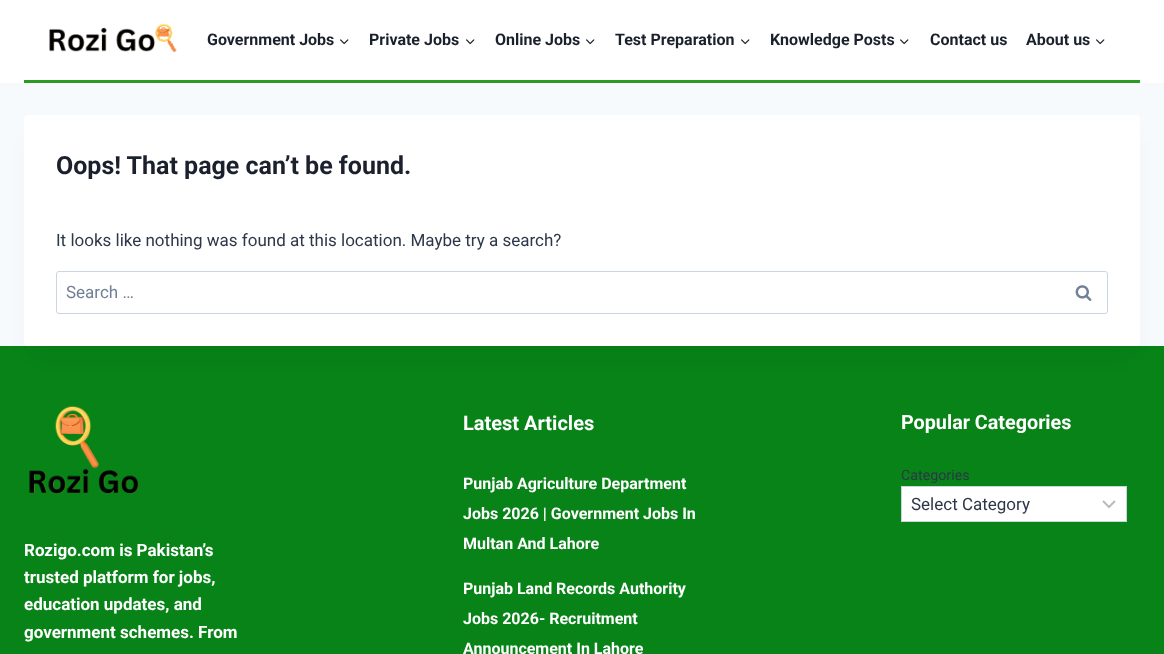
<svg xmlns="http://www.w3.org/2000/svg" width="1164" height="654">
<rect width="100%" height="100%" fill="#f7fafc"/>
<rect width="1164" height="83" fill="#fff"/>
<rect x="24" y="80" width="1116" height="3" fill="#2d9a21"/>
<image x="49" y="23" width="128" height="30" href="media/1.png"/>
<text x="207" y="45" style="font-family:Roboto;font-size:16px;font-weight:bold;fill:#1a202c">Government Jobs</text>
<image x="340" y="39" width="9" height="6" href="media/2.png"/>
<text x="369" y="45" style="font-family:Roboto;font-size:16px;font-weight:bold;fill:#1a202c">Private Jobs</text>
<image x="466" y="39" width="9" height="6" href="media/2.png"/>
<text x="495" y="45" style="font-family:Roboto;font-size:16px;font-weight:bold;fill:#1a202c">Online Jobs</text>
<image x="586" y="39" width="9" height="6" href="media/2.png"/>
<text x="615" y="45" style="font-family:Roboto;font-size:16px;font-weight:bold;fill:#1a202c">Test Preparation</text>
<image x="741" y="39" width="9" height="6" href="media/2.png"/>
<text x="770" y="45" style="font-family:Roboto;font-size:16px;font-weight:bold;fill:#1a202c">Knowledge Posts</text>
<image x="900" y="39" width="9" height="6" href="media/2.png"/>
<text x="930" y="45" style="font-family:Roboto;font-size:16px;font-weight:bold;fill:#1a202c">Contact us</text>
<text x="1026" y="45" style="font-family:Roboto;font-size:16px;font-weight:bold;fill:#1a202c">About us</text>
<image x="1096" y="39" width="9" height="6" href="media/2.png"/>
<rect y="346" width="1164" height="308" fill="#088318"/>
<rect x="34" y="140" width="1096" height="211" fill="#0000000d" filter="blur(12.5px)"/>
<rect x="24" y="115" width="1116" height="231" rx="4" fill="#fff"/>
<text x="56" y="174" style="font-family:Roboto;font-size:25px;font-weight:bold;fill:#1a202c">Oops! That page can’t be found.</text>
<text x="56" y="246" style="font-family:Roboto;font-size:17px;fill:#2d3748">It looks like nothing was found at this location. Maybe try a search?</text>
<rect x="56.5" y="271.5" width="1051" height="42" rx="2.5" fill="none" stroke="#cbd5e0"/>
<text x="66" y="298" style="font-family:Roboto;font-size:17px;fill:#718096">Search …</text>
<image x="1075" y="285" width="17" height="16" href="media/3.png"/>
<image x="29" y="406" width="110" height="88" href="media/4.png"/>
<text x="24" y="556" style="font-family:Roboto;font-size:17px;font-weight:bold;fill:#fff">Rozigo.com is Pakistan’s</text>
<text x="24" y="583" style="font-family:Roboto;font-size:17px;font-weight:bold;fill:#fff">trusted platform for jobs,</text>
<text x="24" y="610" style="font-family:Roboto;font-size:17px;font-weight:bold;fill:#fff">education updates, and</text>
<text x="24" y="638" style="font-family:Roboto;font-size:17px;font-weight:bold;fill:#fff">government schemes. From</text>
<text x="463" y="430" style="font-family:Roboto;font-size:20px;font-weight:bold;fill:#fff">Latest Articles</text>
<text x="463" y="489" style="font-family:Roboto;font-size:16px;font-weight:bold;fill:#fff">Punjab Agriculture Department</text>
<text x="463" y="519" style="font-family:Roboto;font-size:16px;font-weight:bold;fill:#fff">Jobs 2026 | Government Jobs In</text>
<text x="463" y="549" style="font-family:Roboto;font-size:16px;font-weight:bold;fill:#fff">Multan And Lahore</text>
<text x="463" y="594" style="font-family:Roboto;font-size:16px;font-weight:bold;fill:#fff">Punjab Land Records Authority</text>
<text x="463" y="624" style="font-family:Roboto;font-size:16px;font-weight:bold;fill:#fff">Jobs 2026- Recruitment</text>
<text x="463" y="654" style="font-family:Roboto;font-size:16px;font-weight:bold;fill:#fff">Announcement In Lahore</text>
<text x="901" y="429" style="font-family:Roboto;font-size:19.75px;font-weight:bold;fill:#fff">Popular Categories</text>
<text x="901" y="480" style="font-family:Roboto;font-size:14.25px;fill:#2d3748">Categories</text>
<rect x="902" y="487" width="224" height="34" fill="#fff"/>
<path d="M1103 501l6 6l6-6" fill="none" stroke="#bbb" stroke-width="2"/>
<rect x="901.5" y="486.5" width="225" height="35" fill="none" stroke="#cbd5e0"/>
<text x="911" y="510" style="font-family:Roboto;font-size:17px;fill:#2d3748">Select Category</text>
</svg>
